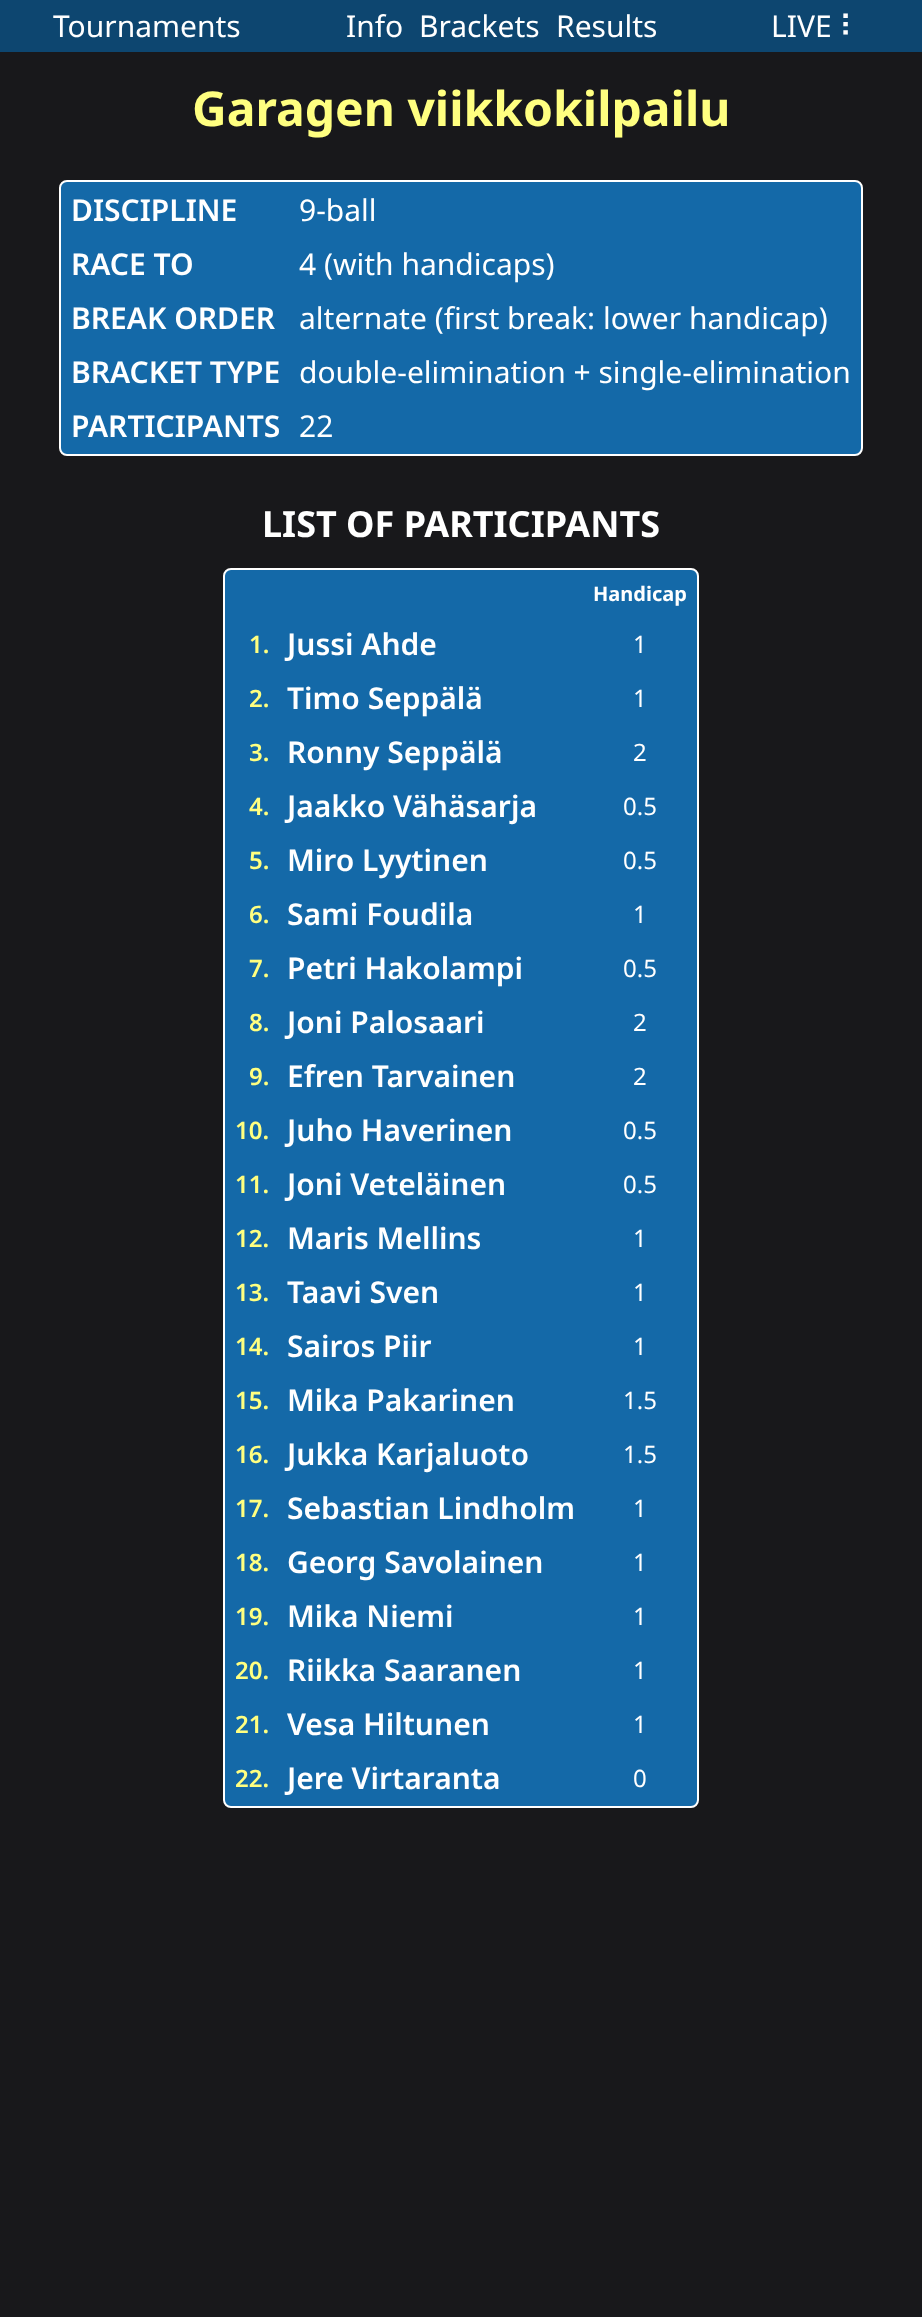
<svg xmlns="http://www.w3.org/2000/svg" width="922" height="2317">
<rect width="100%" height="100%" fill="#18181b"/>
<rect width="922" height="52" fill="#0d4670"/>
<text x="53" y="37" style="font-family:Noto Sans;font-size:30px;fill:#fff">Tournaments</text>
<text x="346" y="37" style="font-family:Noto Sans;font-size:30px;fill:#fff">Info</text>
<text x="419" y="37" style="font-family:Noto Sans;font-size:30px;fill:#fff">Brackets</text>
<text x="556" y="37" style="font-family:Noto Sans;font-size:30px;fill:#fff">Results</text>
<text x="771" y="37" style="font-family:Noto Sans;font-size:30px;fill:#fff">LIVE</text>
<text x="839" y="37" style="font-family:DejaVu Sans;font-size:30px;fill:#fff">⠇</text>
<text x="192" y="126" style="font-family:Noto Sans;font-size:48px;font-weight:bold;fill:#ffff80">Garagen viikkokilpailu</text>
<rect x="60" y="181" width="802" height="274" rx="7" fill="#1469a8" stroke="#fff" stroke-width="2"/>
<text x="71" y="221" style="font-family:Noto Sans;font-size:30px;font-weight:600;fill:#fff">DISCIPLINE</text>
<text x="299" y="221" style="font-family:Noto Sans;font-size:30px;fill:#fff">9-ball</text>
<text x="71" y="275" style="font-family:Noto Sans;font-size:30px;font-weight:600;fill:#fff">RACE TO</text>
<text x="299" y="275" style="font-family:Noto Sans;font-size:30px;fill:#fff">4 (with handicaps)</text>
<text x="71" y="329" style="font-family:Noto Sans;font-size:30px;font-weight:600;fill:#fff">BREAK ORDER</text>
<text x="299" y="329" style="font-family:Noto Sans;font-size:30px;fill:#fff">alternate (first break: lower handicap)</text>
<text x="71" y="383" style="font-family:Noto Sans;font-size:30px;font-weight:600;fill:#fff">BRACKET TYPE</text>
<text x="299" y="383" style="font-family:Noto Sans;font-size:30px;fill:#fff">double-elimination + single-elimination</text>
<text x="71" y="437" style="font-family:Noto Sans;font-size:30px;font-weight:600;fill:#fff">PARTICIPANTS</text>
<text x="299" y="437" style="font-family:Noto Sans;font-size:30px;fill:#fff">22</text>
<text x="262" y="537" style="font-family:Noto Sans;font-size:36px;font-weight:bold;fill:#fff">LIST OF PARTICIPANTS</text>
<rect x="224" y="569" width="474" height="1238" rx="7" fill="#1469a8" stroke="#fff" stroke-width="2"/>
<text x="593" y="601" style="font-family:Noto Sans;font-size:20px;font-weight:bold;fill:#fff">Handicap</text>
<text x="249" y="653" style="font-family:Noto Sans;font-size:24px;font-weight:600;fill:#ffff80">1.</text>
<text x="287" y="655" style="font-family:Noto Sans;font-size:30px;font-weight:600;fill:#fff">Jussi Ahde</text>
<text x="633" y="653" style="font-family:Noto Sans;font-size:24px;fill:#fff">1</text>
<text x="249" y="707" style="font-family:Noto Sans;font-size:24px;font-weight:600;fill:#ffff80">2.</text>
<text x="287" y="709" style="font-family:Noto Sans;font-size:30px;font-weight:600;fill:#fff">Timo Seppälä</text>
<text x="633" y="707" style="font-family:Noto Sans;font-size:24px;fill:#fff">1</text>
<text x="249" y="761" style="font-family:Noto Sans;font-size:24px;font-weight:600;fill:#ffff80">3.</text>
<text x="287" y="763" style="font-family:Noto Sans;font-size:30px;font-weight:600;fill:#fff">Ronny Seppälä</text>
<text x="633" y="761" style="font-family:Noto Sans;font-size:24px;fill:#fff">2</text>
<text x="249" y="815" style="font-family:Noto Sans;font-size:24px;font-weight:600;fill:#ffff80">4.</text>
<text x="287" y="817" style="font-family:Noto Sans;font-size:30px;font-weight:600;fill:#fff">Jaakko Vähäsarja</text>
<text x="623" y="815" style="font-family:Noto Sans;font-size:24px;fill:#fff">0.5</text>
<text x="249" y="869" style="font-family:Noto Sans;font-size:24px;font-weight:600;fill:#ffff80">5.</text>
<text x="287" y="871" style="font-family:Noto Sans;font-size:30px;font-weight:600;fill:#fff">Miro Lyytinen</text>
<text x="623" y="869" style="font-family:Noto Sans;font-size:24px;fill:#fff">0.5</text>
<text x="249" y="923" style="font-family:Noto Sans;font-size:24px;font-weight:600;fill:#ffff80">6.</text>
<text x="287" y="925" style="font-family:Noto Sans;font-size:30px;font-weight:600;fill:#fff">Sami Foudila</text>
<text x="633" y="923" style="font-family:Noto Sans;font-size:24px;fill:#fff">1</text>
<text x="249" y="977" style="font-family:Noto Sans;font-size:24px;font-weight:600;fill:#ffff80">7.</text>
<text x="287" y="979" style="font-family:Noto Sans;font-size:30px;font-weight:600;fill:#fff">Petri Hakolampi</text>
<text x="623" y="977" style="font-family:Noto Sans;font-size:24px;fill:#fff">0.5</text>
<text x="249" y="1031" style="font-family:Noto Sans;font-size:24px;font-weight:600;fill:#ffff80">8.</text>
<text x="287" y="1033" style="font-family:Noto Sans;font-size:30px;font-weight:600;fill:#fff">Joni Palosaari</text>
<text x="633" y="1031" style="font-family:Noto Sans;font-size:24px;fill:#fff">2</text>
<text x="249" y="1085" style="font-family:Noto Sans;font-size:24px;font-weight:600;fill:#ffff80">9.</text>
<text x="287" y="1087" style="font-family:Noto Sans;font-size:30px;font-weight:600;fill:#fff">Efren Tarvainen</text>
<text x="633" y="1085" style="font-family:Noto Sans;font-size:24px;fill:#fff">2</text>
<text x="235" y="1139" style="font-family:Noto Sans;font-size:24px;font-weight:600;fill:#ffff80">10.</text>
<text x="287" y="1141" style="font-family:Noto Sans;font-size:30px;font-weight:600;fill:#fff">Juho Haverinen</text>
<text x="623" y="1139" style="font-family:Noto Sans;font-size:24px;fill:#fff">0.5</text>
<text x="235" y="1193" style="font-family:Noto Sans;font-size:24px;font-weight:600;fill:#ffff80">11.</text>
<text x="287" y="1195" style="font-family:Noto Sans;font-size:30px;font-weight:600;fill:#fff">Joni Veteläinen</text>
<text x="623" y="1193" style="font-family:Noto Sans;font-size:24px;fill:#fff">0.5</text>
<text x="235" y="1247" style="font-family:Noto Sans;font-size:24px;font-weight:600;fill:#ffff80">12.</text>
<text x="287" y="1249" style="font-family:Noto Sans;font-size:30px;font-weight:600;fill:#fff">Maris Mellins</text>
<text x="633" y="1247" style="font-family:Noto Sans;font-size:24px;fill:#fff">1</text>
<text x="235" y="1301" style="font-family:Noto Sans;font-size:24px;font-weight:600;fill:#ffff80">13.</text>
<text x="287" y="1303" style="font-family:Noto Sans;font-size:30px;font-weight:600;fill:#fff">Taavi Sven</text>
<text x="633" y="1301" style="font-family:Noto Sans;font-size:24px;fill:#fff">1</text>
<text x="235" y="1355" style="font-family:Noto Sans;font-size:24px;font-weight:600;fill:#ffff80">14.</text>
<text x="287" y="1357" style="font-family:Noto Sans;font-size:30px;font-weight:600;fill:#fff">Sairos Piir</text>
<text x="633" y="1355" style="font-family:Noto Sans;font-size:24px;fill:#fff">1</text>
<text x="235" y="1409" style="font-family:Noto Sans;font-size:24px;font-weight:600;fill:#ffff80">15.</text>
<text x="287" y="1411" style="font-family:Noto Sans;font-size:30px;font-weight:600;fill:#fff">Mika Pakarinen</text>
<text x="623" y="1409" style="font-family:Noto Sans;font-size:24px;fill:#fff">1.5</text>
<text x="235" y="1463" style="font-family:Noto Sans;font-size:24px;font-weight:600;fill:#ffff80">16.</text>
<text x="287" y="1465" style="font-family:Noto Sans;font-size:30px;font-weight:600;fill:#fff">Jukka Karjaluoto</text>
<text x="623" y="1463" style="font-family:Noto Sans;font-size:24px;fill:#fff">1.5</text>
<text x="235" y="1517" style="font-family:Noto Sans;font-size:24px;font-weight:600;fill:#ffff80">17.</text>
<text x="287" y="1519" style="font-family:Noto Sans;font-size:30px;font-weight:600;fill:#fff">Sebastian Lindholm</text>
<text x="633" y="1517" style="font-family:Noto Sans;font-size:24px;fill:#fff">1</text>
<text x="235" y="1571" style="font-family:Noto Sans;font-size:24px;font-weight:600;fill:#ffff80">18.</text>
<text x="287" y="1573" style="font-family:Noto Sans;font-size:30px;font-weight:600;fill:#fff">Georg Savolainen</text>
<text x="633" y="1571" style="font-family:Noto Sans;font-size:24px;fill:#fff">1</text>
<text x="235" y="1625" style="font-family:Noto Sans;font-size:24px;font-weight:600;fill:#ffff80">19.</text>
<text x="287" y="1627" style="font-family:Noto Sans;font-size:30px;font-weight:600;fill:#fff">Mika Niemi</text>
<text x="633" y="1625" style="font-family:Noto Sans;font-size:24px;fill:#fff">1</text>
<text x="235" y="1679" style="font-family:Noto Sans;font-size:24px;font-weight:600;fill:#ffff80">20.</text>
<text x="287" y="1681" style="font-family:Noto Sans;font-size:30px;font-weight:600;fill:#fff">Riikka Saaranen</text>
<text x="633" y="1679" style="font-family:Noto Sans;font-size:24px;fill:#fff">1</text>
<text x="235" y="1733" style="font-family:Noto Sans;font-size:24px;font-weight:600;fill:#ffff80">21.</text>
<text x="287" y="1735" style="font-family:Noto Sans;font-size:30px;font-weight:600;fill:#fff">Vesa Hiltunen</text>
<text x="633" y="1733" style="font-family:Noto Sans;font-size:24px;fill:#fff">1</text>
<text x="235" y="1787" style="font-family:Noto Sans;font-size:24px;font-weight:600;fill:#ffff80">22.</text>
<text x="287" y="1789" style="font-family:Noto Sans;font-size:30px;font-weight:600;fill:#fff">Jere Virtaranta</text>
<text x="633" y="1787" style="font-family:Noto Sans;font-size:24px;fill:#fff">0</text>
</svg>
